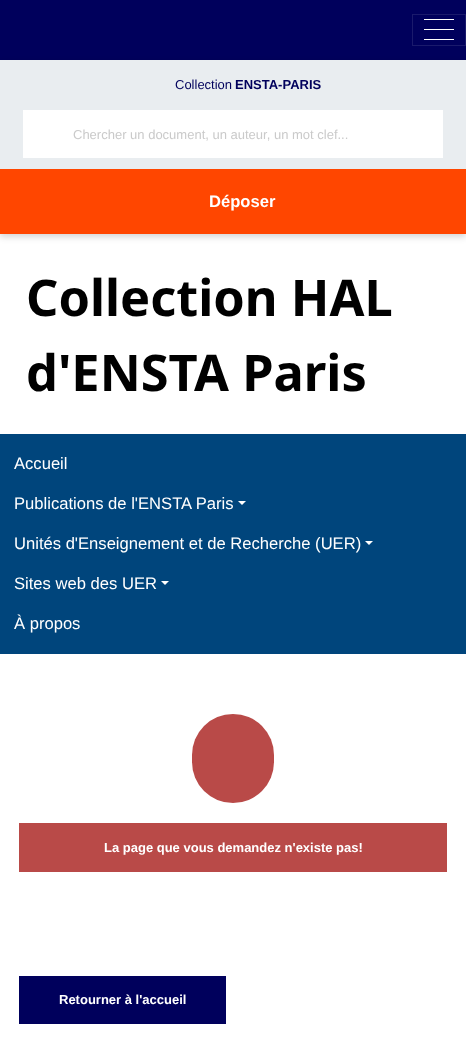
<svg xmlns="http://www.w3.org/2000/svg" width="466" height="1039">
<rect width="100%" height="100%" fill="#fff"/>
<rect width="466" height="60" fill="#00005c"/>
<rect x="412.5" y="14.5" width="53" height="31" fill="none" stroke="#1a1a6c"/>
<rect x="424" y="19" width="30" height="1" fill="#fff"/>
<rect x="424" y="29" width="30" height="1" fill="#fff"/>
<rect x="424" y="39" width="30" height="1" fill="#fff"/>
<rect y="63" width="466" height="174" fill="#00000029" filter="blur(3px)"/>
<rect y="60" width="466" height="109" fill="#e9edf0"/>
<text x="175" y="89" style="font-family:Liberation Sans;font-size:13px;fill:#00005c">Collection</text>
<text x="235" y="89" style="font-family:Liberation Sans;font-size:13px;font-weight:bold;fill:#00005c">ENSTA-PARIS</text>
<rect x="23" y="110" width="420" height="48" fill="#fff"/>
<text x="73" y="139" style="font-family:Liberation Sans;font-size:13px;fill:#cacaca">Chercher un document, un auteur, un mot clef...</text>
<rect y="169" width="466" height="65" fill="#ff4600"/>
<text x="209" y="207" style="font-family:Liberation Sans;font-size:16.6px;font-weight:bold;fill:#fff">Déposer</text>
<text x="26" y="316" style="font-family:Noto Sans;font-size:50.5px;font-weight:bold;fill:#000">Collection HAL</text>
<text x="26" y="391" style="font-family:Noto Sans;font-size:50.5px;font-weight:bold;fill:#000">d'ENSTA Paris</text>
<rect y="434" width="466" height="220" fill="#00457c"/>
<text x="14" y="469" style="font-family:Liberation Sans;font-size:16.6px;fill:#fff">Accueil</text>
<text x="14" y="509" style="font-family:Liberation Sans;font-size:16.6px;fill:#fff">Publications de l'ENSTA Paris</text>
<path d="M238 501h8l-4 4z" fill="#fff"/>
<text x="14" y="549" style="font-family:Liberation Sans;font-size:16.6px;fill:#fff">Unités d'Enseignement et de Recherche (UER)</text>
<path d="M365 541h8l-4 4z" fill="#fff"/>
<text x="14" y="589" style="font-family:Liberation Sans;font-size:16.6px;fill:#fff">Sites web des UER</text>
<path d="M161 581h8l-4 4z" fill="#fff"/>
<text x="14" y="629" style="font-family:Liberation Sans;font-size:16.6px;fill:#fff">À propos</text>
<rect x="192" y="714" width="82" height="89" rx="41" fill="#b94a48"/>
<rect x="19" y="823" width="428" height="49" fill="#b94a48"/>
<text x="104" y="852" style="font-family:Liberation Sans;font-size:13px;font-weight:bold;fill:#fff">La page que vous demandez n'existe pas!</text>
<rect x="19" y="976" width="207" height="48" fill="#00005c"/>
<text x="59" y="1004" style="font-family:Liberation Sans;font-size:13px;font-weight:bold;fill:#fff">Retourner à l'accueil</text>
</svg>
